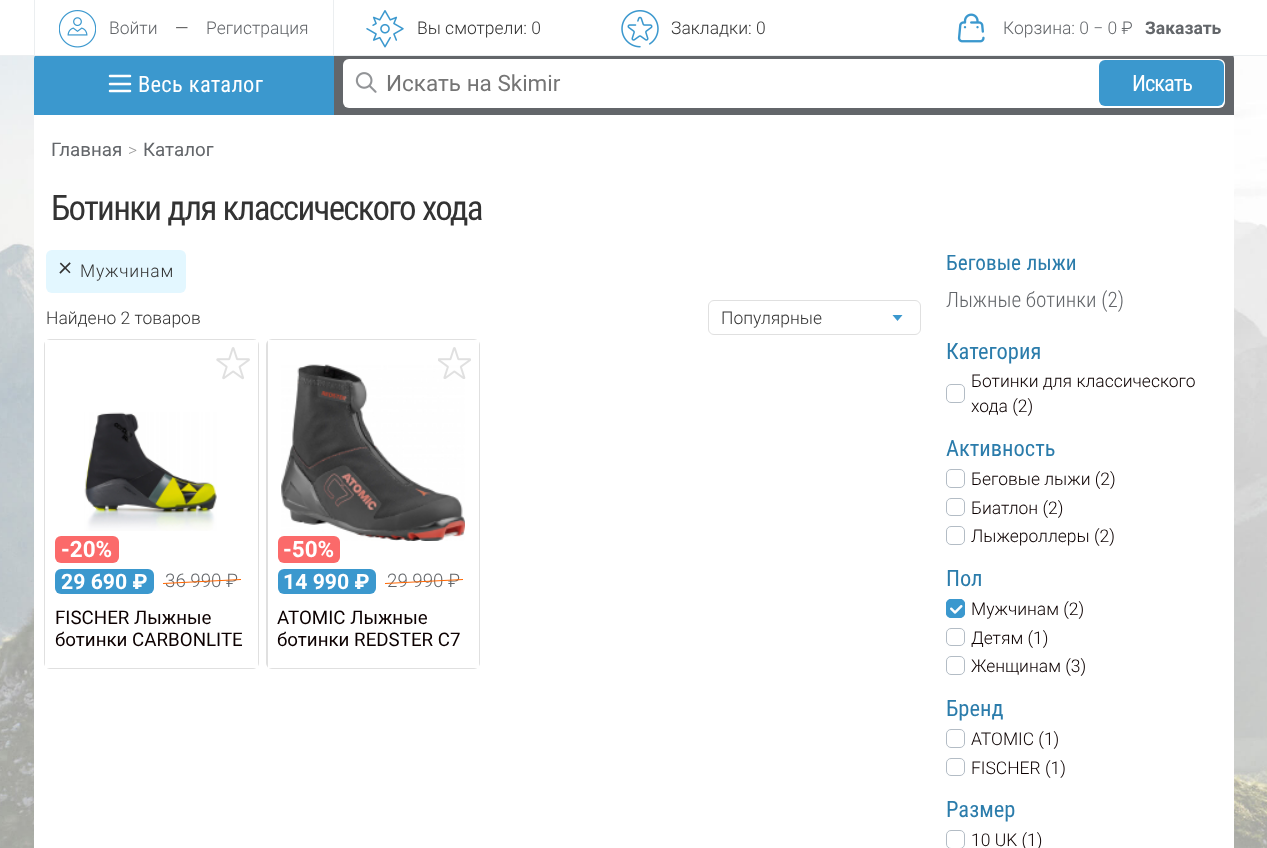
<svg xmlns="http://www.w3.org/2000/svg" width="1267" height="848">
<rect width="100%" height="100%" fill="#fff"/>
<image x="0" y="56" width="1267" height="792" href="media/1.png"/>
<rect x="34" y="56" width="1200" height="792" fill="#fff"/>
<path d="M40 53h294v62h-300v-56c0-3.5 2.5-6 6-6z" fill="#3b98ce"/>
<path d="M334 53h894c3.5 0 6 2.5 6 6v56h-900z" fill="#63666a"/>
<rect x="35" y="53" width="1198" height="2" fill="#fff"/>
<rect y="55" width="1267" height="1" fill="#ebeef0"/>
<rect x="333" width="1" height="56" fill="#ebeef0"/>
<rect x="34" width="1" height="56" fill="#ebeef0"/>
<image x="59" y="10" width="37" height="38" href="media/2.png"/>
<text x="109" y="34" style="font-family:Roboto;font-size:17.5px;font-weight:300;fill:#63666a">Войти</text>
<text x="175" y="34" style="font-family:Roboto;font-size:17.5px;font-weight:300;fill:#333">—</text>
<text x="206" y="34" style="font-family:Roboto;font-size:17.5px;font-weight:300;fill:#63666a">Регистрация</text>
<image x="366" y="10" width="38" height="38" href="media/3.png"/>
<text x="417" y="34" style="font-family:Roboto;font-size:17.5px;font-weight:300;fill:#333">Вы смотрели: 0</text>
<image x="621" y="10" width="38" height="38" href="media/4.png"/>
<text x="671" y="34" style="font-family:Roboto;font-size:17.5px;font-weight:300;fill:#333">Закладки: 0</text>
<image x="957" y="13" width="28" height="30" href="media/5.png"/>
<text x="1003" y="34" style="font-family:Roboto;font-size:17.5px;font-weight:300;fill:#63666a">Корзина: 0 − 0 ₽</text>
<text x="1145" y="34" style="font-family:Roboto;font-size:17.5px;font-weight:bold;fill:#63666a">Заказать</text>
<path d="M110 76h20m-20 8h20m-20 7h20" fill="none" stroke="#fff" stroke-width="2.5" stroke-linecap="round" stroke-linejoin="round"/>
<text x="138" y="92" style="font-family:Roboto Condensed;font-size:22.5px;letter-spacing:0.25px;fill:#fff">Весь каталог</text>
<rect x="343" y="59" width="882" height="49" rx="6" fill="#fff"/>
<image x="355" y="72" width="22" height="21" href="media/6.png"/>
<text x="386" y="91" style="font-family:Roboto;font-size:22.5px;fill:#757575">Искать на Skimir</text>
<rect x="1099" y="60" width="125" height="46" rx="6" fill="#3b98ce"/>
<text x="1132" y="91" style="font-family:Roboto Condensed;font-size:22.5px;letter-spacing:-1px;fill:#fff">Искать</text>
<text x="51" y="156" style="font-family:Roboto;font-size:18.75px;fill:#63666a">Главная</text>
<text x="128" y="156" style="font-family:Roboto;font-size:17.5px;font-weight:300;fill:#999">&gt;</text>
<text x="143" y="156" style="font-family:Roboto;font-size:18.75px;fill:#63666a">Каталог</text>
<text x="51" y="220" style="font-family:Roboto Condensed;font-size:35px;letter-spacing:-1.75px;fill:#333">Ботинки для классического хода</text>
<rect x="46" y="250" width="140" height="43" rx="6" fill="#e3f7ff"/>
<text x="53" y="269" transform="rotate(45 53 269)" style="font-family:Roboto;font-size:28px;font-weight:300;letter-spacing:0.75px;fill:#333">+</text>
<text x="80" y="277" style="font-family:Roboto;font-size:17.5px;font-weight:300;letter-spacing:0.75px;fill:#333">Мужчинам</text>
<text x="46" y="324" style="font-family:Roboto;font-size:17.5px;font-weight:300;fill:#333">Найдено 2 товаров</text>
<rect x="708.5" y="300.5" width="212" height="34" rx="5.5" fill="none" stroke="#e0e0e0"/>
<text x="721" y="324" style="font-family:Roboto;font-size:17.5px;font-weight:300;fill:#333">Популярные</text>
<path d="M892.5 315l5 6l5-6z" fill="#3b98ce"/>
<rect x="44" y="339" width="215" height="330" rx="6" fill="#e0e0e0"/>
<rect x="45" y="340" width="213" height="328" fill="#fff"/>
<image x="216" y="347" width="34" height="33" href="media/7.png"/>
<image x="84" y="412" width="133" height="119" href="media/8.png"/>
<rect x="55" y="536" width="64" height="27" rx="6" fill="#fb6a6a"/>
<text x="61" y="557" style="font-family:Roboto;font-size:22.5px;font-weight:bold;fill:#fff">-20%</text>
<rect x="55" y="569" width="99" height="25" rx="6" fill="#3b98ce"/>
<text x="61" y="589" style="font-family:Roboto;font-size:21.25px;font-weight:bold;fill:#fff">29 690 ₽</text>
<text x="165" y="587" style="font-family:Roboto;font-size:18.75px;font-weight:300;fill:#63666a">36 990 ₽</text>
<path d="M163 583l78-4v1l-78 4z" fill="#f60"/>
<text x="55" y="624" style="font-family:Roboto;font-size:18.75px;fill:#0c0000">FISCHER Лыжные</text>
<text x="55" y="646" style="font-family:Roboto;font-size:18.75px;fill:#0c0000">ботинки CARBONLITE</text>
<rect x="266" y="339" width="214" height="330" rx="6" fill="#e0e0e0"/>
<rect x="268" y="340" width="211" height="328" fill="#fff"/>
<image x="281" y="364" width="184" height="177" href="media/10.png"/>
<image x="438" y="347" width="33" height="32" href="media/9.png"/>
<rect x="278" y="536" width="62" height="27" rx="6" fill="#fb6a6a"/>
<text x="283" y="557" style="font-family:Roboto;font-size:22.5px;font-weight:bold;fill:#fff">-50%</text>
<rect x="278" y="569" width="98" height="25" rx="6" fill="#3b98ce"/>
<text x="283" y="589" style="font-family:Roboto;font-size:21.25px;font-weight:bold;fill:#fff">14 990 ₽</text>
<text x="387" y="587" style="font-family:Roboto;font-size:18.75px;font-weight:300;fill:#63666a">29 990 ₽</text>
<path d="M385 583l78-4v1l-78 4z" fill="#f60"/>
<text x="277" y="624" style="font-family:Roboto;font-size:18.75px;fill:#0c0000">ATOMIC Лыжные</text>
<text x="277" y="646" style="font-family:Roboto;font-size:18.75px;fill:#0c0000">ботинки REDSTER C7</text>
<text x="946" y="270" style="font-family:Roboto Condensed;font-size:21.25px;fill:#2b7cab">Беговые лыжи</text>
<text x="946" y="307" style="font-family:Roboto Condensed;font-size:21.25px;font-weight:300;fill:#63666a">Лыжные ботинки (2)</text>
<text x="946" y="359" style="font-family:Roboto Condensed;font-size:22.5px;fill:#2b7cab">Категория</text>
<rect x="946.5" y="384.5" width="18" height="18" rx="4.5" fill="none" stroke="#b3bcc5"/>
<text x="971" y="387" style="font-family:Roboto;font-size:17.5px;font-weight:300;fill:#0c0000">Ботинки для классического</text>
<text x="971" y="412" style="font-family:Roboto;font-size:17.5px;font-weight:300;fill:#0c0000">хода (2)</text>
<text x="946" y="456" style="font-family:Roboto Condensed;font-size:22.5px;fill:#2b7cab">Активность</text>
<rect x="946.5" y="469.5" width="18" height="18" rx="4.5" fill="none" stroke="#b3bcc5"/>
<text x="971" y="485" style="font-family:Roboto;font-size:17.5px;font-weight:300;fill:#0c0000">Беговые лыжи (2)</text>
<rect x="946.5" y="498.5" width="18" height="17" rx="4.5" fill="none" stroke="#b3bcc5"/>
<text x="971" y="514" style="font-family:Roboto;font-size:17.5px;font-weight:300;fill:#0c0000">Биатлон (2)</text>
<rect x="946.5" y="526.5" width="18" height="18" rx="4.5" fill="none" stroke="#b3bcc5"/>
<text x="971" y="542" style="font-family:Roboto;font-size:17.5px;font-weight:300;fill:#0c0000">Лыжероллеры (2)</text>
<text x="946" y="586" style="font-family:Roboto Condensed;font-size:22.5px;fill:#2b7cab">Пол</text>
<rect x="946" y="599" width="19" height="19" rx="5" fill="#3b98ce"/>
<image x="950" y="605" width="13" height="9" href="media/11.png"/>
<rect x="946.5" y="599.5" width="18" height="18" rx="4.5" fill="none" stroke="#3b98ce"/>
<text x="971" y="615" style="font-family:Roboto;font-size:17.5px;font-weight:300;fill:#0c0000">Мужчинам (2)</text>
<rect x="946.5" y="628.5" width="18" height="17" rx="4.5" fill="none" stroke="#b3bcc5"/>
<text x="971" y="644" style="font-family:Roboto;font-size:17.5px;font-weight:300;fill:#0c0000">Детям (1)</text>
<rect x="946.5" y="656.5" width="18" height="18" rx="4.5" fill="none" stroke="#b3bcc5"/>
<text x="971" y="672" style="font-family:Roboto;font-size:17.5px;font-weight:300;fill:#0c0000">Женщинам (3)</text>
<text x="946" y="716" style="font-family:Roboto Condensed;font-size:22.5px;fill:#2b7cab">Бренд</text>
<rect x="946.5" y="729.5" width="18" height="18" rx="4.5" fill="none" stroke="#b3bcc5"/>
<text x="971" y="745" style="font-family:Roboto;font-size:17.5px;font-weight:300;fill:#0c0000">ATOMIC (1)</text>
<rect x="946.5" y="758.5" width="18" height="17" rx="4.5" fill="none" stroke="#b3bcc5"/>
<text x="971" y="774" style="font-family:Roboto;font-size:17.5px;font-weight:300;fill:#0c0000">FISCHER (1)</text>
<text x="946" y="817" style="font-family:Roboto Condensed;font-size:22.5px;fill:#2b7cab">Размер</text>
<rect x="946.5" y="830.5" width="18" height="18" rx="4.5" fill="none" stroke="#b3bcc5"/>
<text x="971" y="846" style="font-family:Roboto;font-size:17.5px;font-weight:300;fill:#0c0000">10 UK (1)</text>
</svg>
